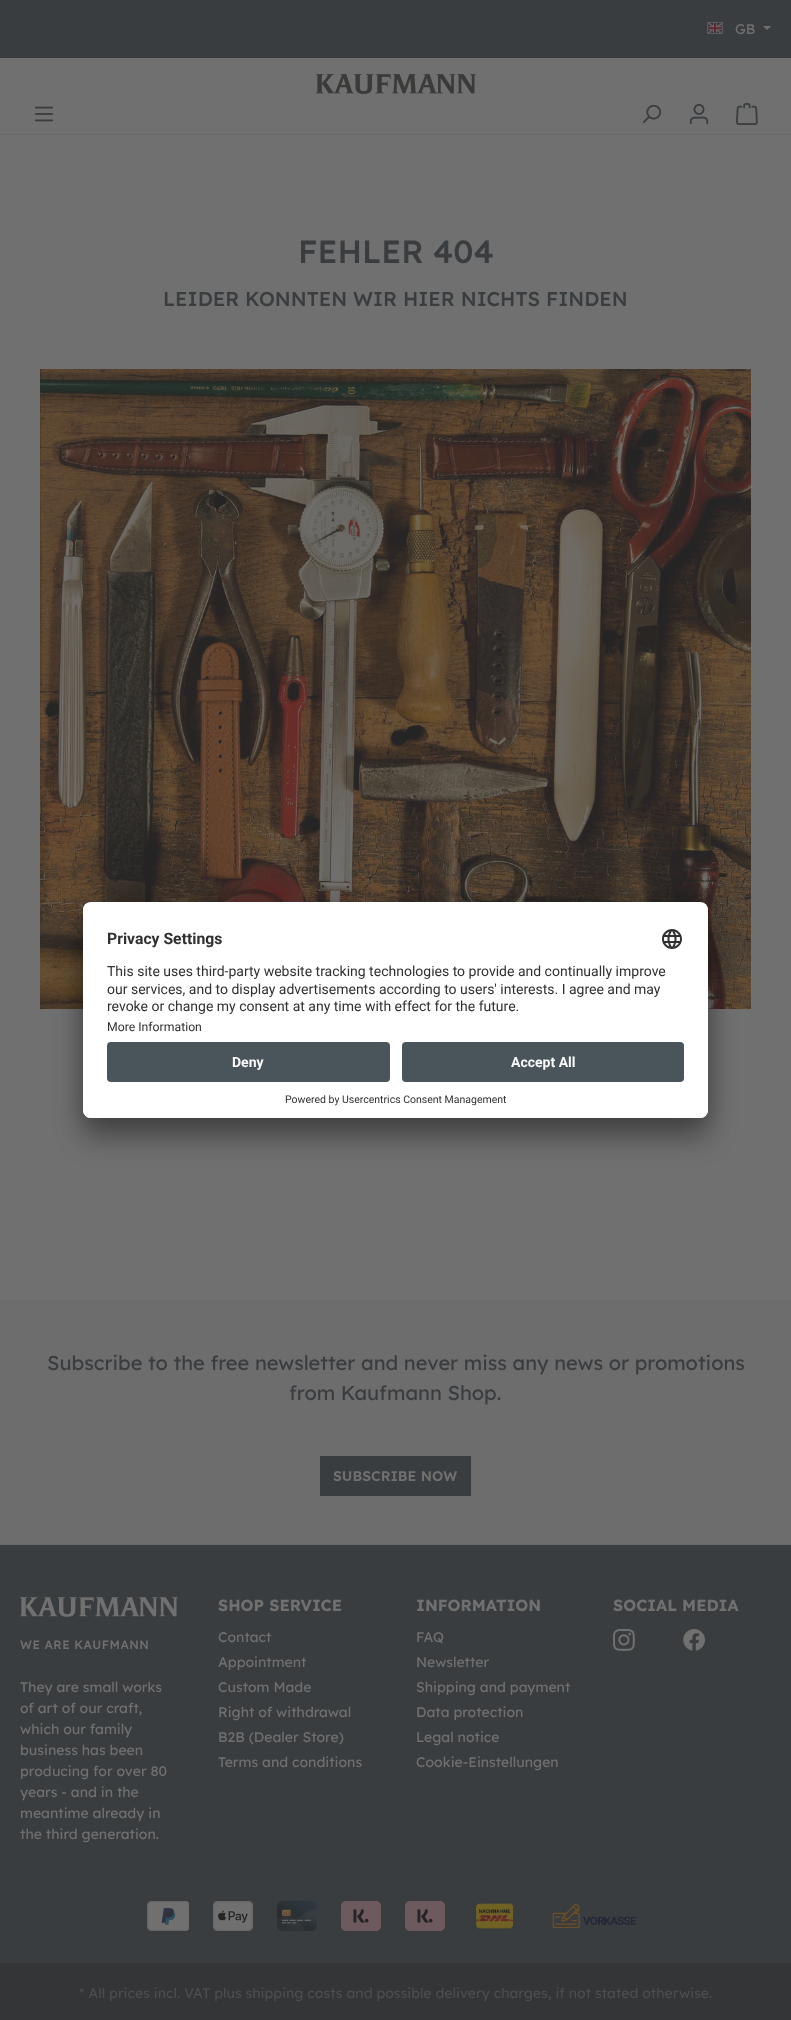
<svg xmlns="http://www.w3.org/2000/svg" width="791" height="2020">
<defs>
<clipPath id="clip1"><rect x="83" y="902" width="625" height="216" rx="8"/></clipPath>
<clipPath id="clip2"><path d="M91 902h609c4.5 0 8 3.5 8 8v124h-625v-124c0-4.5 3.5-8 8-8z"/></clipPath>
</defs>
<rect width="100%" height="100%" fill="#707070"/>
<rect width="791" height="58" fill="#3a3d3f"/>
<image x="708" y="23" width="14" height="10" href="media/1.png"/>
<rect x="707.5" y="22.5" width="15" height="11" fill="none" stroke="#585a5c"/>
<text x="735" y="34" style="font-family:Lexend;font-size:14px;fill:#707070">GB</text>
<path d="M763 26h8l-4 4z" fill="#707070"/>
<rect y="134" width="791" height="1" fill="#696969"/>
<image x="316" y="74" width="160" height="20" href="media/2.png"/>
<image x="34" y="106" width="20" height="16" href="media/3.png"/>
<image x="642" y="104" width="20" height="20" href="media/4.png"/>
<image x="689" y="103" width="20" height="22" href="media/5.png"/>
<image x="736" y="103" width="22" height="22" href="media/6.png"/>
<text x="298" y="263" style="font-family:Lexend;font-size:32px;font-weight:500;fill:#3a3d3f">FEHLER 404</text>
<text x="163" y="306" style="font-family:Lexend;font-size:20px;font-weight:500;fill:#3a3d3f">LEIDER KONNTEN WIR HIER NICHTS FINDEN</text>
<image x="40" y="369" width="711" height="640" href="media/7.png"/>
<rect x="83" y="922" width="625" height="216" rx="8" fill="#0000004d" filter="blur(14px)"/>
<rect x="83" y="907" width="625" height="216" rx="8" fill="#00000038" filter="blur(13px)"/>
<rect x="83" y="902" width="625" height="216" rx="8" fill="#fff"/>
<g clip-path="url(#clip1)">
<g clip-path="url(#clip2)">
<rect x="83" y="903" width="625" height="131" fill="#fff"/>
</g>
</g>
<text x="107" y="944" style="font-family:Roboto;font-size:15.75px;font-weight:bold;fill:#303030">Privacy Settings</text>
<image x="662" y="929" width="20" height="20" href="media/8.png"/>
<text x="107" y="976" style="font-family:Roboto;font-size:14px;fill:#303030">This site uses third-party website tracking technologies to provide and continually improve</text>
<text x="107" y="994" style="font-family:Roboto;font-size:14px;fill:#303030">our services, and to display advertisements according to users' interests. I agree and may</text>
<text x="107" y="1011" style="font-family:Roboto;font-size:14px;fill:#303030">revoke or change my consent at any time with effect for the future.</text>
<text x="107" y="1031" style="font-family:Roboto;font-size:12.25px;fill:#303030">More Information</text>
<path d="M83 1034h625v76c0 4.5-3.5 8-8 8h-609c-4.5 0-8-3.5-8-8z" fill="#fff"/>
<rect x="107" y="1042" width="283" height="40" rx="4" fill="#4a545b"/>
<text x="232" y="1067" style="font-family:Roboto;font-size:14px;font-weight:bold;fill:#fafafa">Deny</text>
<rect x="402" y="1042" width="282" height="40" rx="4" fill="#4a545b"/>
<text x="511" y="1067" style="font-family:Roboto;font-size:14px;font-weight:bold;fill:#fafafa">Accept All</text>
<text x="285" y="1103" style="font-family:Roboto;font-size:10.5px;fill:#303030">Powered by Usercentrics Consent Management</text>
<rect y="1300" width="791" height="244" fill="#6d6d6e"/>
<text x="47" y="1370" style="font-family:Lexend;font-size:20px;fill:#3a3d3f">Subscribe to the free newsletter and never miss any news or promotions</text>
<text x="289" y="1400" style="font-family:Lexend;font-size:20px;fill:#3a3d3f">from Kaufmann Shop.</text>
<rect x="320" y="1456" width="151" height="40" fill="#3a3d3f"/>
<text x="333" y="1481" style="font-family:Lexend;font-size:14px;font-weight:600;fill:#707070">SUBSCRIBE NOW</text>
<rect y="1545" width="791" height="418" fill="#3a3d3f"/>
<rect y="1544" width="791" height="1" fill="#696969"/>
<text x="218" y="1611" style="font-family:Lexend;font-size:16px;font-weight:bold;fill:#707070">SHOP SERVICE</text>
<text x="218" y="1642" style="font-family:Lexend;font-size:14px;fill:#707070">Contact</text>
<text x="218" y="1667" style="font-family:Lexend;font-size:14px;fill:#707070">Appointment</text>
<text x="218" y="1692" style="font-family:Lexend;font-size:14px;fill:#707070">Custom Made</text>
<text x="218" y="1717" style="font-family:Lexend;font-size:14px;fill:#707070">Right of withdrawal</text>
<text x="218" y="1742" style="font-family:Lexend;font-size:14px;fill:#707070">B2B (Dealer Store)</text>
<text x="218" y="1767" style="font-family:Lexend;font-size:14px;fill:#707070">Terms and conditions</text>
<text x="416" y="1611" style="font-family:Lexend;font-size:16px;font-weight:bold;fill:#707070">INFORMATION</text>
<text x="416" y="1642" style="font-family:Lexend;font-size:14px;fill:#707070">FAQ</text>
<text x="416" y="1667" style="font-family:Lexend;font-size:14px;fill:#707070">Newsletter</text>
<text x="416" y="1692" style="font-family:Lexend;font-size:14px;fill:#707070">Shipping and payment</text>
<text x="416" y="1717" style="font-family:Lexend;font-size:14px;fill:#707070">Data protection</text>
<text x="416" y="1742" style="font-family:Lexend;font-size:14px;fill:#707070">Legal notice</text>
<text x="416" y="1767" style="font-family:Lexend;font-size:14px;fill:#707070">Cookie-Einstellungen</text>
<text x="613" y="1611" style="font-family:Lexend;font-size:16px;font-weight:bold;fill:#707070">SOCIAL MEDIA</text>
<image x="613" y="1629" width="22" height="22" href="media/9.png"/>
<image x="683" y="1629" width="22" height="22" href="media/10.png"/>
<image x="20" y="1597" width="158" height="20" href="media/11.png"/>
<text x="20" y="1649" style="font-family:Lexend;font-size:12px;font-weight:500;letter-spacing:0.5px;fill:#707070">WE ARE KAUFMANN</text>
<text x="20" y="1692" style="font-family:Lexend;font-size:14px;fill:#707070">They are small works</text>
<text x="20" y="1713" style="font-family:Lexend;font-size:14px;fill:#707070">of art of our craft,</text>
<text x="20" y="1734" style="font-family:Lexend;font-size:14px;fill:#707070">which our family</text>
<text x="20" y="1755" style="font-family:Lexend;font-size:14px;fill:#707070">business has been</text>
<text x="20" y="1776" style="font-family:Lexend;font-size:14px;fill:#707070">producing for over 80</text>
<text x="20" y="1797" style="font-family:Lexend;font-size:14px;fill:#707070">years - and in the</text>
<text x="20" y="1818" style="font-family:Lexend;font-size:14px;fill:#707070">meantime already in</text>
<text x="20" y="1839" style="font-family:Lexend;font-size:14px;fill:#707070">the third generation.</text>
<image x="147" y="1901" width="42" height="30" href="media/12.png"/>
<image x="213" y="1901" width="40" height="30" href="media/13.png"/>
<image x="277" y="1901" width="40" height="30" href="media/14.png"/>
<image x="341" y="1901" width="40" height="30" href="media/15.png"/>
<image x="405" y="1901" width="40" height="30" href="media/15.png"/>
<image x="475" y="1903" width="39" height="26" href="media/16.png"/>
<image x="552" y="1903" width="85" height="25" href="media/17.png"/>
<rect y="1963" width="791" height="57" fill="#333537"/>
<text x="79" y="1998" style="font-family:Lexend;font-size:14px;fill:#4b4d4e">* All prices incl. VAT plus shipping costs and possible delivery charges, if not stated otherwise.</text>
</svg>
